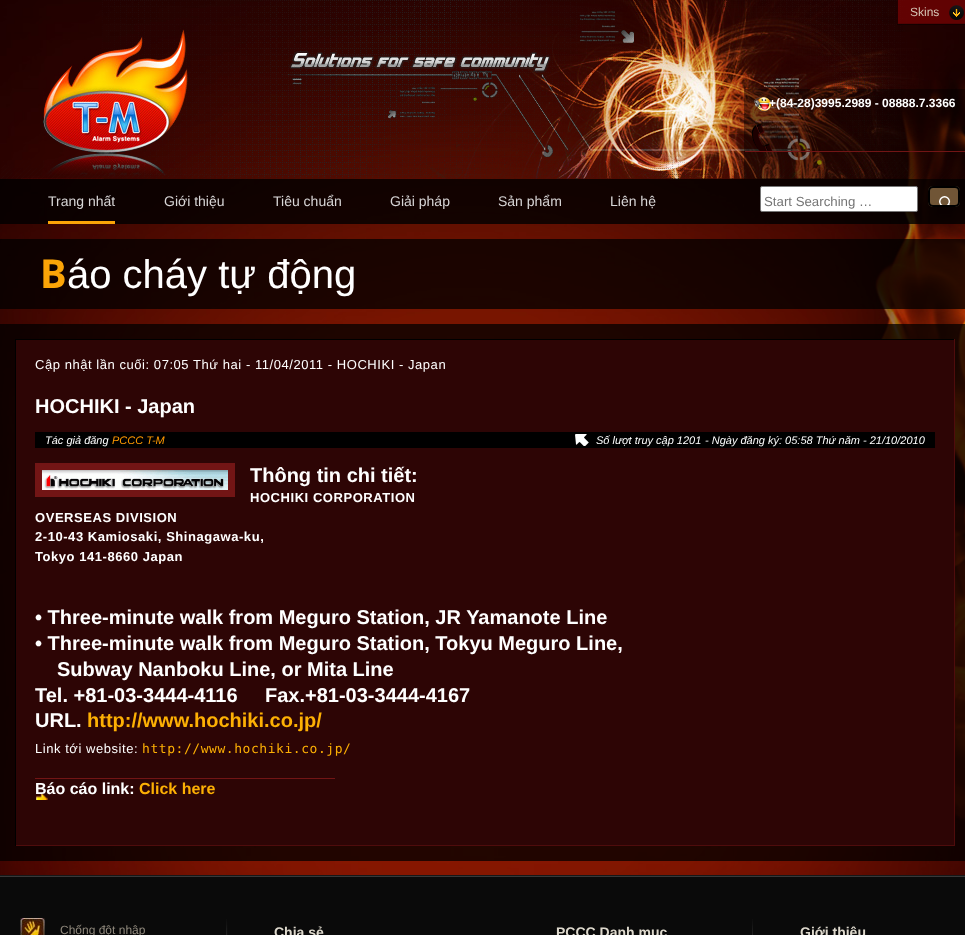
<svg xmlns="http://www.w3.org/2000/svg" width="965" height="935">
<rect width="100%" height="100%" fill="#fff"/>
<image x="0" y="0" width="965" height="875" href="media/1.png"/>
<image x="1" y="0" width="963" height="179" href="media/3.png"/>
<image x="897" y="0" width="68" height="25" href="media/2.png"/>
<text x="910" y="16" style="font-family:Liberation Sans;font-size:12px;fill:#d6c6b6">Skins</text>
<rect x="744" y="89" width="221" height="90" fill="#00000066"/>
<image x="754" y="97" width="18" height="15" href="media/4.png"/>
<text x="769" y="107" style="font-family:Liberation Sans;font-size:12px;font-weight:bold;fill:#fff">+(84-28)3995.2989 - 08888.7.3366</text>
<rect x="745" y="151" width="220" height="1" fill="#721515"/>
<image x="751" y="124" width="22" height="27" href="media/5.png"/>
<rect y="179" width="965" height="45" fill="#000000cc"/>
<text x="48" y="206" style="font-family:Liberation Sans;font-size:14px;fill:#d8d6d6">Trang nhất</text>
<text x="164" y="206" style="font-family:Liberation Sans;font-size:14px;fill:#d8d6d6">Giới thiệu</text>
<text x="273" y="206" style="font-family:Liberation Sans;font-size:14px;fill:#d8d6d6">Tiêu chuẩn</text>
<text x="390" y="206" style="font-family:Liberation Sans;font-size:14px;fill:#d8d6d6">Giải pháp</text>
<text x="498" y="206" style="font-family:Liberation Sans;font-size:14px;fill:#d8d6d6">Sản phẩm</text>
<text x="610" y="206" style="font-family:Liberation Sans;font-size:14px;fill:#d8d6d6">Liên hệ</text>
<rect x="760.5" y="186.5" width="157" height="25" rx="1.5" fill="#fff" stroke="#767676"/>
<text x="764" y="206" style="font-family:Liberation Sans;font-size:13.25px;fill:#757575">Start Searching …</text>
<rect x="928" y="186" width="32" height="21" rx="5" fill="#705536"/>
<image x="939" y="196" width="12" height="9" href="media/6.png"/>
<rect x="929" y="187" width="30" height="19" rx="4" fill="none" stroke="#000" stroke-width="2"/>
<rect x="48" y="221" width="67" height="3" fill="#fba407"/>
<rect y="239" width="965" height="70" fill="#000000bf"/>
<text x="40" y="288" style="font-family:Noto Sans;font-size:40px;font-weight:bold;fill:#fba407">B</text>
<text x="67" y="288" style="font-family:Liberation Sans;font-size:40px;fill:#fff">áo cháy tự động</text>
<rect y="324" width="965" height="537" fill="#000000bf"/>
<rect x="16" y="340" width="938" height="505" fill="#2d0505"/>
<rect x="15" y="339" width="940" height="1" fill="#000"/>
<rect x="954" y="339" width="1" height="507" fill="#4f0c0c"/>
<rect x="15" y="845" width="940" height="1" fill="#4f0c0c"/>
<rect x="15" y="339" width="1" height="507" fill="#000"/>
<text x="35" y="369" style="font-family:Liberation Sans;font-size:13px;letter-spacing:0.55px;fill:#fff">Cập nhật lần cuối: 07:05 Thứ hai - 11/04/2011 - HOCHIKI - Japan</text>
<text x="35" y="413" style="font-family:Liberation Sans;font-size:20px;font-weight:bold;fill:#fff">HOCHIKI - Japan</text>
<rect x="35" y="432" width="900" height="16" fill="#000"/>
<text x="45" y="444" style="font-family:Liberation Sans;font-size:11px;font-style:italic;fill:#fff">Tác giả đăng</text>
<text x="112" y="444" style="font-family:Liberation Sans;font-size:11px;font-style:italic;fill:#f90">PCCC T-M</text>
<image x="575" y="434" width="14" height="12" href="media/7.png"/>
<text x="596" y="444" style="font-family:Liberation Sans;font-size:11px;font-style:italic;fill:#fff">Số lượt truy cập 1201</text>
<text x="705" y="444" style="font-family:Liberation Sans;font-size:11px;font-style:italic;fill:#fff">- Ngày đăng ký: 05:58 Thứ năm - 21/10/2010</text>
<rect x="35" y="463" width="200" height="34" fill="#721515"/>
<image x="42" y="470" width="186" height="20" href="media/8.png"/>
<text x="250" y="482" style="font-family:Liberation Sans;font-size:20px;font-weight:bold;fill:#fff">Thông tin chi tiết:</text>
<text x="250" y="502" style="font-family:Liberation Sans;font-size:13px;font-weight:bold;letter-spacing:0.55px;fill:#fff">HOCHIKI CORPORATION</text>
<text x="35" y="522" style="font-family:Liberation Sans;font-size:13px;font-weight:bold;letter-spacing:0.55px;fill:#fff">OVERSEAS DIVISION</text>
<text x="35" y="541" style="font-family:Liberation Sans;font-size:13px;font-weight:bold;letter-spacing:0.55px;fill:#fff">2-10-43 Kamiosaki, Shinagawa-ku,</text>
<text x="35" y="561" style="font-family:Liberation Sans;font-size:13px;font-weight:bold;letter-spacing:0.55px;fill:#fff">Tokyo 141-8660 Japan</text>
<text x="35" y="624" style="font-family:Liberation Sans;font-size:20px;font-weight:bold;fill:#fff">• Three-minute walk from Meguro Station, JR Yamanote Line</text>
<text x="35" y="650" style="font-family:Liberation Sans;font-size:20px;font-weight:bold;fill:#fff">• Three-minute walk from Meguro Station, Tokyu Meguro Line,</text>
<text x="57" y="676" style="font-family:Liberation Sans;font-size:20px;font-weight:bold;fill:#fff">Subway Nanboku Line, or Mita Line</text>
<text x="35" y="702" style="font-family:Liberation Sans;font-size:20px;font-weight:bold;fill:#fff">Tel. +81-03-3444-4116</text>
<text x="265" y="702" style="font-family:Liberation Sans;font-size:20px;font-weight:bold;fill:#fff">Fax.+81-03-3444-4167</text>
<text x="35" y="727" style="font-family:Liberation Sans;font-size:20px;font-weight:bold;fill:#fff">URL.</text>
<text x="87" y="727" style="font-family:Liberation Sans;font-size:20px;font-weight:bold;fill:#fdb004">http://www.hochiki.co.jp/</text>
<text x="35" y="753" style="font-family:Liberation Sans;font-size:13px;letter-spacing:0.55px;fill:#fff">Link tới website:</text>
<text x="142" y="753" style="font-family:DejaVu Sans Mono;font-size:13px;letter-spacing:0.55px;fill:#fdb004">http://www.hochiki.co.jp/</text>
<rect x="35" y="778" width="300" height="1" fill="#721515"/>
<image x="36" y="793" width="12" height="7" href="media/9.png"/>
<text x="35" y="794" style="font-family:Liberation Sans;font-size:16px;font-weight:bold;fill:#fff">Báo cáo link:</text>
<text x="139" y="794" style="font-family:Liberation Sans;font-size:16px;font-weight:bold;fill:#fdb004">Click here</text>
<rect y="875" width="965" height="1" fill="#171717"/>
<rect y="877" width="965" height="58" fill="#0a0a0a"/>
<rect y="876" width="965" height="1" fill="#383838"/>
<image x="20" y="918" width="25" height="17" href="media/10.png"/>
<text x="60" y="934" style="font-family:Liberation Sans;font-size:12px;fill:#8f887c">Chống đột nhập</text>
<image x="226" y="919" width="2" height="16" href="media/11.png"/>
<text x="274" y="937" style="font-family:Liberation Sans;font-size:14px;font-weight:bold;fill:#ded9cd">Chia sẻ</text>
<text x="556" y="937" style="font-family:Liberation Sans;font-size:14px;font-weight:bold;fill:#ded9cd">PCCC Danh mục</text>
<image x="752" y="919" width="1" height="16" href="media/12.png"/>
<text x="800" y="937" style="font-family:Liberation Sans;font-size:14px;font-weight:bold;fill:#ded9cd">Giới thiệu</text>
</svg>
